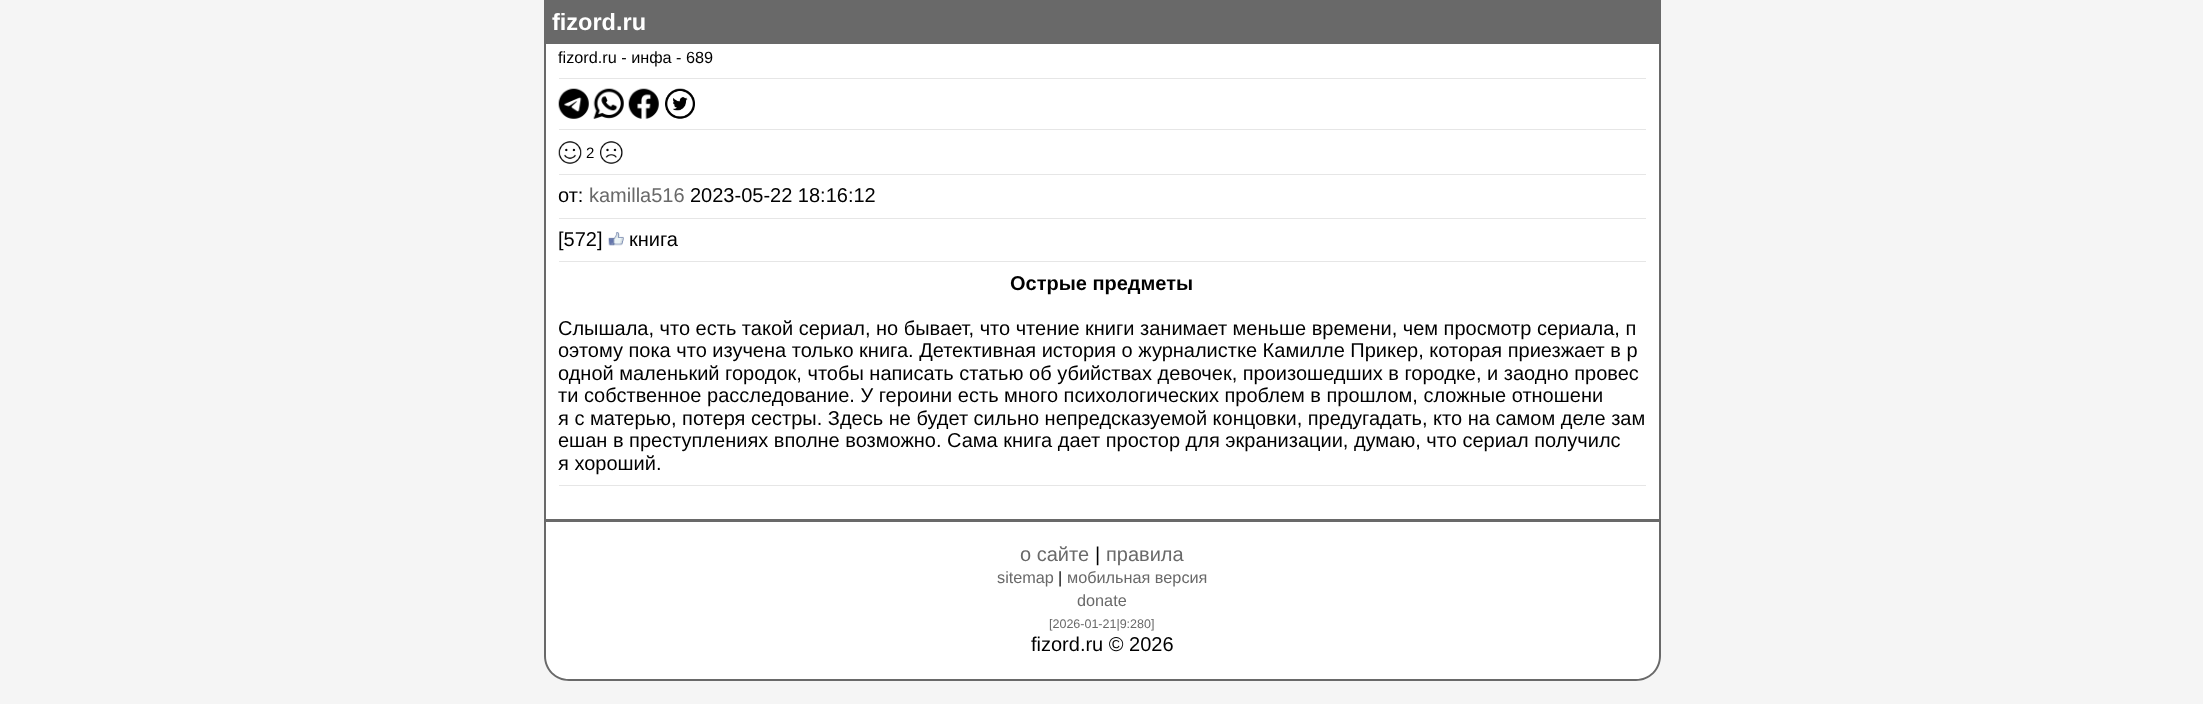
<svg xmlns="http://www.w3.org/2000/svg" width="2203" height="704">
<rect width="100%" height="100%" fill="#f5f5f5"/>
<path d="M544 0h1117v656c0 14-11 25-25 25h-1067c-14 0-25-11-25-25z" fill="#fff"/>
<path d="M544 0h1117v656c0 14-11 25-25 25h-1067c-14 0-25-11-25-25zm2 0h1113v656c0 13-10 23-23 23h-1067c-13 0-23-10-23-23z" fill="#696969" fill-rule="evenodd"/>
<rect x="546" width="1113" height="44" fill="#696969"/>
<text x="552" y="30" style="font-family:Liberation Sans;font-size:23.5px;font-weight:bold;fill:#fff">fizord.ru</text>
<text x="558" y="63" style="font-family:Liberation Sans;font-size:16.25px;fill:#000">fizord.ru - инфа - 689</text>
<rect x="559" y="78" width="1087" height="1" fill="#e6e6e6"/>
<image x="558" y="88" width="31" height="31" href="media/1.png"/>
<image x="593" y="88" width="31" height="31" href="media/2.png"/>
<image x="628" y="88" width="31" height="31" href="media/3.png"/>
<image x="665" y="88" width="30" height="31" href="media/4.png"/>
<rect x="559" y="129" width="1087" height="1" fill="#e6e6e6"/>
<image x="558" y="141" width="24" height="23" href="media/5.png"/>
<text x="586" y="158" style="font-family:Liberation Sans;font-size:15px;fill:#000">2</text>
<image x="600" y="141" width="23" height="23" href="media/6.png"/>
<rect x="559" y="174" width="1087" height="1" fill="#e6e6e6"/>
<text x="558" y="202" style="font-family:Liberation Sans;font-size:20px;fill:#000">от:</text>
<text x="589" y="202" style="font-family:Liberation Sans;font-size:20px;fill:#696969">kamilla516</text>
<text x="690" y="202" style="font-family:Liberation Sans;font-size:20px;fill:#000">2023-05-22 18:16:12</text>
<rect x="559" y="218" width="1087" height="1" fill="#e6e6e6"/>
<text x="558" y="246" style="font-family:Liberation Sans;font-size:20px;fill:#000">[572]</text>
<image x="608" y="232" width="16" height="14" href="media/7.png"/>
<text x="629" y="246" style="font-family:Liberation Sans;font-size:20px;fill:#000">книга</text>
<rect x="559" y="261" width="1087" height="1" fill="#e6e6e6"/>
<text x="1010" y="290" style="font-family:Liberation Sans;font-size:20px;font-weight:bold;fill:#000">Острые предметы</text>
<text x="558" y="335" style="font-family:Liberation Sans;font-size:20px;fill:#000">Слышала, что есть такой сериал, но бывает, что чтение книги занимает меньше времени, чем просмотр сериала, п</text>
<text x="558" y="357" style="font-family:Liberation Sans;font-size:20px;fill:#000">оэтому пока что изучена только книга. Детективная история о журналистке Камилле Прикер, которая приезжает в р</text>
<text x="558" y="380" style="font-family:Liberation Sans;font-size:20px;fill:#000">одной маленький городок, чтобы написать статью об убийствах девочек, произошедших в городке, и заодно провес</text>
<text x="558" y="402" style="font-family:Liberation Sans;font-size:20px;fill:#000">ти собственное расследование. У героини есть много психологических проблем в прошлом, сложные отношени</text>
<text x="558" y="425" style="font-family:Liberation Sans;font-size:20px;fill:#000">я с матерью, потеря сестры. Здесь не будет сильно непредсказуемой концовки, предугадать, кто на самом деле зам</text>
<text x="558" y="447" style="font-family:Liberation Sans;font-size:20px;fill:#000">ешан в преступлениях вполне возможно. Сама книга дает простор для экранизации, думаю, что сериал получилс</text>
<text x="558" y="470" style="font-family:Liberation Sans;font-size:20px;fill:#000">я хороший.</text>
<rect x="559" y="485" width="1087" height="1" fill="#e6e6e6"/>
<rect x="546" y="519" width="1113" height="3" fill="#696969"/>
<text x="1020" y="561" style="font-family:Liberation Sans;font-size:20px;fill:#696969">о сайте</text>
<text x="1095" y="561" style="font-family:Liberation Sans;font-size:20px;fill:#000">|</text>
<text x="1106" y="561" style="font-family:Liberation Sans;font-size:20px;fill:#696969">правила</text>
<text x="997" y="583" style="font-family:Liberation Sans;font-size:16.25px;fill:#696969">sitemap</text>
<text x="1058" y="583" style="font-family:Liberation Sans;font-size:16.25px;fill:#000">|</text>
<text x="1067" y="583" style="font-family:Liberation Sans;font-size:16.25px;fill:#696969">мобильная версия</text>
<text x="1077" y="606" style="font-family:Liberation Sans;font-size:16.25px;fill:#696969">donate</text>
<text x="1049" y="628" style="font-family:Liberation Sans;font-size:12.5px;fill:#696969">[2026-01-21|9:280]</text>
<text x="1031" y="651" style="font-family:Liberation Sans;font-size:20px;fill:#000">fizord.ru © 2026</text>
</svg>
